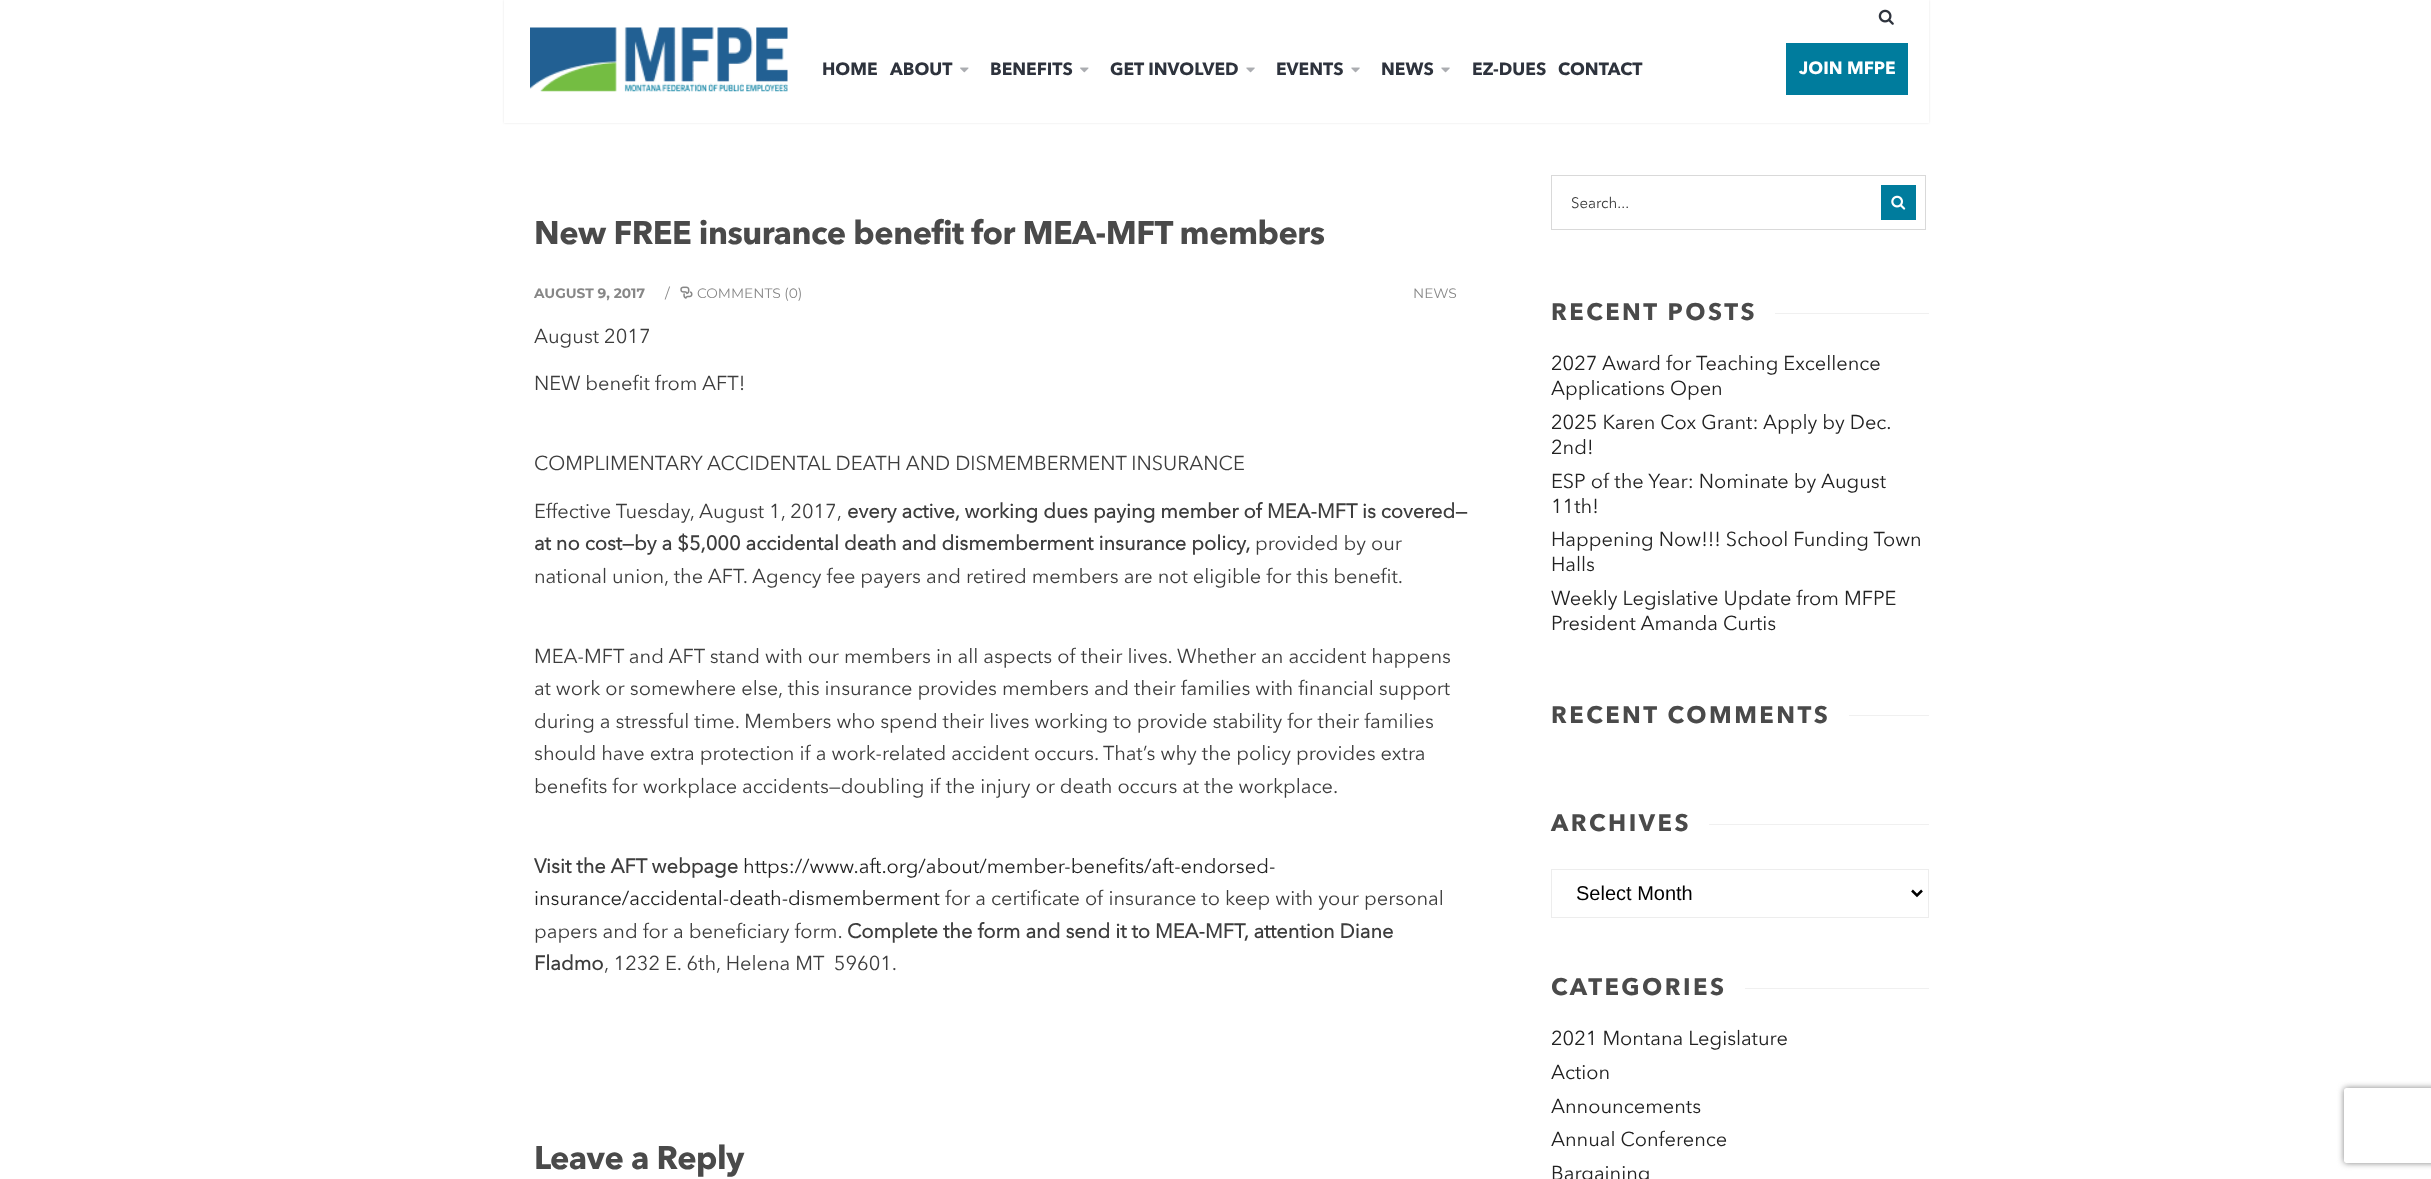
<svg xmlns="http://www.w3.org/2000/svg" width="2431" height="1179">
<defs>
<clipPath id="clip1"><path d="M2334 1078h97v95h-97zm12.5 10h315c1.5 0 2.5 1 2.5 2.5v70c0 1.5-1 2.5-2.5 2.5h-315c-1.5 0-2.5-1-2.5-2.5v-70c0-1.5 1-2.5 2.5-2.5z" clip-rule="evenodd"/></clipPath>
</defs>
<rect width="100%" height="100%" fill="#fff"/>
<rect x="504" width="1425" height="123" fill="#0000001a" filter="blur(1px)"/>
<rect x="504" width="1425" height="123" fill="#fff"/>
<image x="1878" y="9" width="16" height="16" href="media/1.png"/>
<image x="530" y="27" width="258" height="65" href="media/2.png"/>
<text x="822" y="75" style="font-family:Avenir Next;font-size:17.5px;font-weight:bold;fill:#2e333d">HOME</text>
<text x="890" y="75" style="font-family:Avenir Next;font-size:17.5px;font-weight:bold;fill:#2e333d">ABOUT</text>
<image x="960" y="67" width="9" height="6" href="media/3.png"/>
<text x="990" y="75" style="font-family:Avenir Next;font-size:17.5px;font-weight:bold;fill:#2e333d">BENEFITS</text>
<image x="1080" y="67" width="9" height="6" href="media/3.png"/>
<text x="1110" y="75" style="font-family:Avenir Next;font-size:17.5px;font-weight:bold;fill:#2e333d">GET INVOLVED</text>
<image x="1246" y="67" width="9" height="6" href="media/4.png"/>
<text x="1276" y="75" style="font-family:Avenir Next;font-size:17.5px;font-weight:bold;fill:#2e333d">EVENTS</text>
<image x="1351" y="67" width="9" height="6" href="media/4.png"/>
<text x="1381" y="75" style="font-family:Avenir Next;font-size:17.5px;font-weight:bold;fill:#2e333d">NEWS</text>
<image x="1441" y="67" width="9" height="6" href="media/4.png"/>
<text x="1472" y="75" style="font-family:Avenir Next;font-size:17.5px;font-weight:bold;fill:#2e333d">EZ-DUES</text>
<text x="1558" y="75" style="font-family:Avenir Next;font-size:17.5px;font-weight:bold;fill:#2e333d">CONTACT</text>
<rect x="1786" y="43" width="122" height="52" fill="#007c9d"/>
<text x="1799" y="74" style="font-family:Avenir Next;font-size:17.5px;font-weight:bold;fill:#fff">JOIN MFPE</text>
<text x="534" y="244" style="font-family:Avenir Next;font-size:32.5px;font-weight:bold;letter-spacing:-0.5px;fill:#4a4a4a">New FREE insurance benefit for MEA-MFT members</text>
<text x="534" y="298" style="font-family:Montserrat;font-size:13.75px;font-weight:bold;fill:#878787">AUGUST 9, 2017</text>
<text x="665" y="298" style="font-family:Montserrat;font-size:13.75px;fill:#878787">/</text>
<image x="680" y="286" width="13" height="13" href="media/5.png"/>
<text x="697" y="298" style="font-family:Montserrat;font-size:13.75px;fill:#878787">COMMENTS (0)</text>
<text x="1413" y="298" style="font-family:Montserrat;font-size:13.75px;fill:#878787">NEWS</text>
<text x="534" y="343" style="font-family:'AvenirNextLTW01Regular';font-size:20px;fill:#3d3d3d">August 2017</text>
<text x="534" y="390" style="font-family:'AvenirNextLTW01Regular';font-size:20px;fill:#3d3d3d">NEW benefit from AFT!</text>
<text x="534" y="470" style="font-family:'AvenirNextLTW01Regular';font-size:20px;fill:#3d3d3d">COMPLIMENTARY ACCIDENTAL DEATH AND DISMEMBERMENT INSURANCE</text>
<text x="534" y="518" style="font-family:'AvenirNextLTW01Regular';font-size:20px;fill:#3d3d3d">Effective Tuesday, August 1, 2017,</text>
<text x="847" y="518" style="font-family:'AvenirNextLTW01Regular';font-size:20px;font-weight:bold;fill:#3d3d3d">every active, working dues paying member of MEA-MFT is covered—</text>
<text x="534" y="550" style="font-family:'AvenirNextLTW01Regular';font-size:20px;font-weight:bold;fill:#3d3d3d">at no cost—by a $5,000 accidental death and dismemberment insurance policy,</text>
<text x="1255" y="550" style="font-family:'AvenirNextLTW01Regular';font-size:20px;fill:#3d3d3d">provided by our</text>
<text x="534" y="583" style="font-family:'AvenirNextLTW01Regular';font-size:20px;fill:#3d3d3d">national union, the AFT. Agency fee payers and retired members are not eligible for this benefit.</text>
<text x="534" y="663" style="font-family:'AvenirNextLTW01Regular';font-size:20px;fill:#3d3d3d">MEA-MFT and AFT stand with our members in all aspects of their lives. Whether an accident happens</text>
<text x="534" y="695" style="font-family:'AvenirNextLTW01Regular';font-size:20px;fill:#3d3d3d">at work or somewhere else, this insurance provides members and their families with financial support</text>
<text x="534" y="728" style="font-family:'AvenirNextLTW01Regular';font-size:20px;fill:#3d3d3d">during a stressful time. Members who spend their lives working to provide stability for their families</text>
<text x="534" y="760" style="font-family:'AvenirNextLTW01Regular';font-size:20px;fill:#3d3d3d">should have extra protection if a work-related accident occurs. That’s why the policy provides extra</text>
<text x="534" y="793" style="font-family:'AvenirNextLTW01Regular';font-size:20px;fill:#3d3d3d">benefits for workplace accidents—doubling if the injury or death occurs at the workplace.</text>
<text x="534" y="873" style="font-family:'AvenirNextLTW01Regular';font-size:20px;font-weight:bold;fill:#3d3d3d">Visit the AFT webpage</text>
<text x="743" y="873" style="font-family:'AvenirNextLTW01Regular';font-size:20px;fill:#222">https://www.aft.org/about/member-benefits/aft-endorsed-</text>
<text x="534" y="905" style="font-family:'AvenirNextLTW01Regular';font-size:20px;fill:#222">insurance/accidental-death-dismemberment</text>
<text x="945" y="905" style="font-family:'AvenirNextLTW01Regular';font-size:20px;fill:#3d3d3d">for a certificate of insurance to keep with your personal</text>
<text x="534" y="938" style="font-family:'AvenirNextLTW01Regular';font-size:20px;fill:#3d3d3d">papers and for a beneficiary form.</text>
<text x="847" y="938" style="font-family:'AvenirNextLTW01Regular';font-size:20px;font-weight:bold;fill:#3d3d3d">Complete the form and send it to MEA-MFT, attention Diane</text>
<text x="534" y="970" style="font-family:'AvenirNextLTW01Regular';font-size:20px;font-weight:bold;fill:#3d3d3d">Fladmo</text>
<text x="604" y="970" style="font-family:'AvenirNextLTW01Regular';font-size:20px;fill:#3d3d3d" xml:space="preserve">, 1232 E. 6th, Helena MT  59601.</text>
<text x="534" y="1169" style="font-family:Avenir Next;font-size:32.5px;font-weight:bold;letter-spacing:-0.5px;fill:#4a4a4a">Leave a Reply</text>
<rect x="1551.5" y="175.5" width="374" height="54" fill="none" stroke="#d9d9d9"/>
<text x="1571" y="208" style="font-family:'AvenirNextLTW01Regular';font-size:15px;fill:#3d3d3d">Search...</text>
<rect x="1881" y="185" width="35" height="35" fill="#007c9d"/>
<image x="1891" y="195" width="15" height="15" href="media/6.png"/>
<text x="1551" y="320" style="font-family:Avenir Next;font-size:23.75px;font-weight:bold;letter-spacing:2.5px;fill:#4a4a4a">RECENT POSTS</text>
<rect x="1775" y="313" width="154" height="1" fill="#f0f0f0"/>
<text x="1551" y="370" style="font-family:'AvenirNextLTW01Regular';font-size:20px;fill:#222">2027 Award for Teaching Excellence</text>
<text x="1551" y="395" style="font-family:'AvenirNextLTW01Regular';font-size:20px;fill:#222">Applications Open</text>
<text x="1551" y="429" style="font-family:'AvenirNextLTW01Regular';font-size:20px;fill:#222">2025 Karen Cox Grant: Apply by Dec.</text>
<text x="1551" y="454" style="font-family:'AvenirNextLTW01Regular';font-size:20px;fill:#222">2nd!</text>
<text x="1551" y="488" style="font-family:'AvenirNextLTW01Regular';font-size:20px;fill:#222">ESP of the Year: Nominate by August</text>
<text x="1551" y="513" style="font-family:'AvenirNextLTW01Regular';font-size:20px;fill:#222">11th!</text>
<text x="1551" y="546" style="font-family:'AvenirNextLTW01Regular';font-size:20px;fill:#222">Happening Now!!! School Funding Town</text>
<text x="1551" y="571" style="font-family:'AvenirNextLTW01Regular';font-size:20px;fill:#222">Halls</text>
<text x="1551" y="605" style="font-family:'AvenirNextLTW01Regular';font-size:20px;fill:#222">Weekly Legislative Update from MFPE</text>
<text x="1551" y="630" style="font-family:'AvenirNextLTW01Regular';font-size:20px;fill:#222">President Amanda Curtis</text>
<text x="1551" y="723" style="font-family:Avenir Next;font-size:23.75px;font-weight:bold;letter-spacing:2.5px;fill:#4a4a4a">RECENT COMMENTS</text>
<rect x="1849" y="715" width="80" height="1" fill="#f0f0f0"/>
<text x="1551" y="831" style="font-family:Avenir Next;font-size:23.75px;font-weight:bold;letter-spacing:2.5px;fill:#4a4a4a">ARCHIVES</text>
<rect x="1709" y="824" width="220" height="1" fill="#f0f0f0"/>
<rect x="1551.5" y="869.5" width="377" height="48" fill="none" stroke="#ededed"/>
<path d="M1912 890.5l5 5l5-5" fill="none" stroke="#000" stroke-width="2.5"/>
<text x="1576" y="900" style="font-family:Liberation Sans;font-size:20px;fill:#000">Select Month</text>
<text x="1551" y="995" style="font-family:Avenir Next;font-size:23.75px;font-weight:bold;letter-spacing:2.5px;fill:#4a4a4a">CATEGORIES</text>
<rect x="1745" y="988" width="184" height="1" fill="#f0f0f0"/>
<text x="1551" y="1045" style="font-family:'AvenirNextLTW01Regular';font-size:20px;fill:#222">2021 Montana Legislature</text>
<text x="1551" y="1079" style="font-family:'AvenirNextLTW01Regular';font-size:20px;fill:#222">Action</text>
<text x="1551" y="1113" style="font-family:'AvenirNextLTW01Regular';font-size:20px;fill:#222">Announcements</text>
<text x="1551" y="1146" style="font-family:'AvenirNextLTW01Regular';font-size:20px;fill:#222">Annual Conference</text>
<text x="1551" y="1180" style="font-family:'AvenirNextLTW01Regular';font-size:20px;fill:#222">Bargaining</text>
<g clip-path="url(#clip1)">
<rect x="2344" y="1088" width="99" height="75" rx="2.5" fill="#808080" filter="blur(3px)"/>
</g>
</svg>
